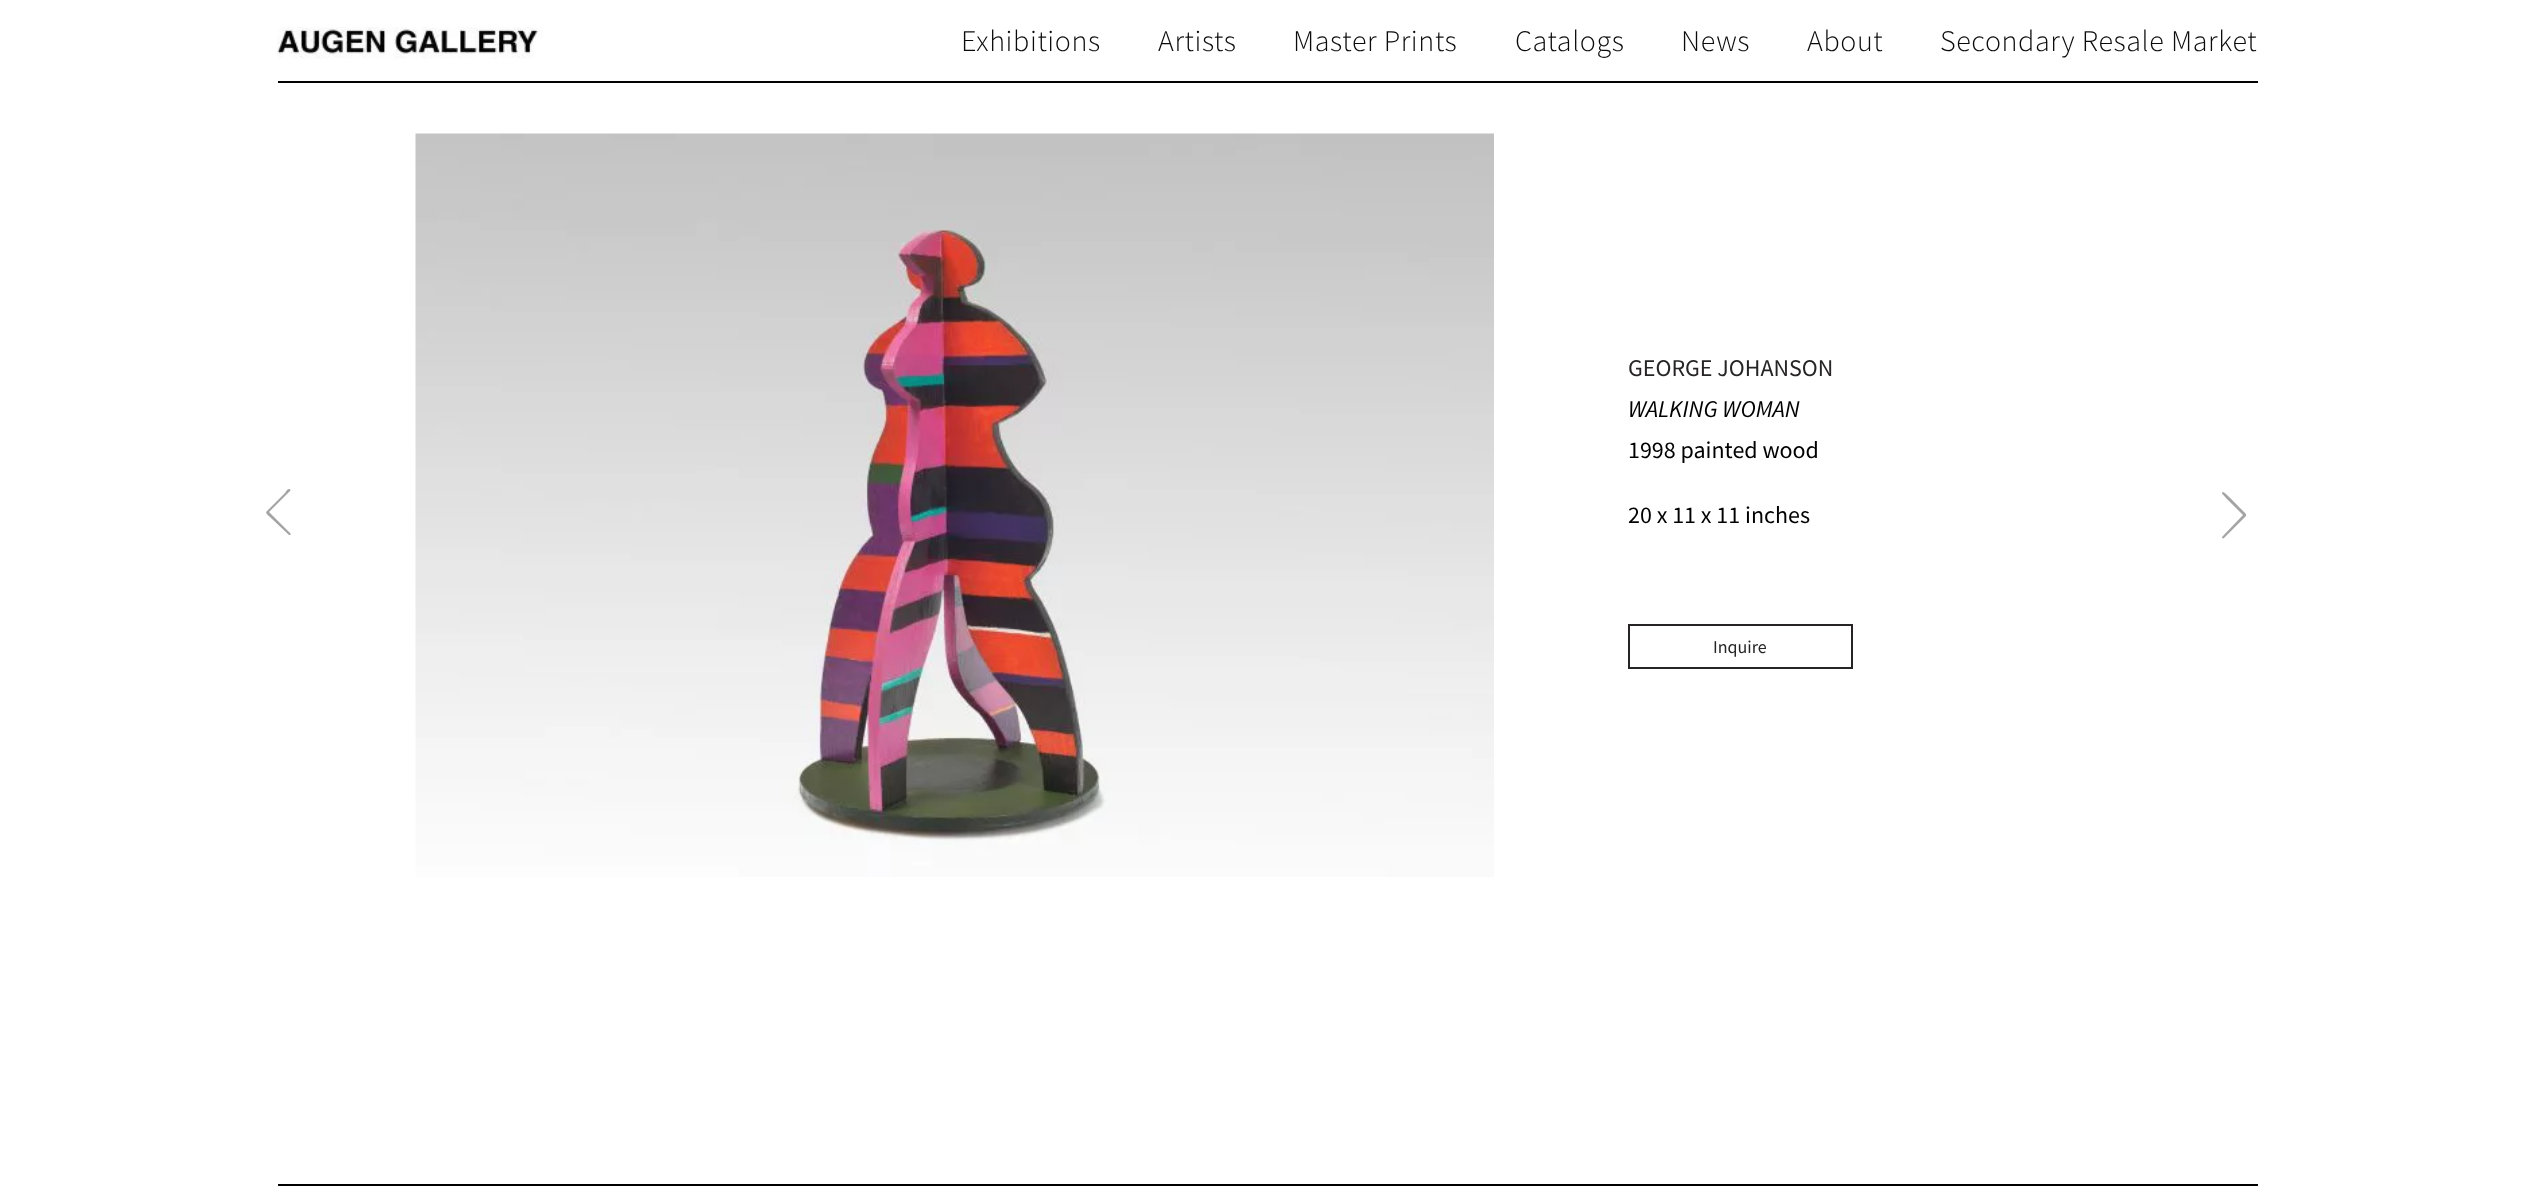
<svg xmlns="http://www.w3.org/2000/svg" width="2535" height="1188">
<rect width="100%" height="100%" fill="#fff"/>
<rect x="278" y="81" width="1980" height="2" fill="#000"/>
<image x="277" y="27" width="266" height="32" href="media/1.png"/>
<text x="961" y="51" style="font-family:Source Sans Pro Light;font-size:30px;font-weight:300;letter-spacing:0.6px;fill:#0a0a0a">Exhibitions</text>
<text x="1158" y="51" style="font-family:Source Sans Pro Light;font-size:30px;font-weight:300;letter-spacing:0.6px;fill:#0a0a0a">Artists</text>
<text x="1293" y="51" style="font-family:Source Sans Pro Light;font-size:30px;font-weight:300;letter-spacing:0.6px;fill:#0a0a0a">Master Prints</text>
<text x="1515" y="51" style="font-family:Source Sans Pro Light;font-size:30px;font-weight:300;letter-spacing:0.6px;fill:#0a0a0a">Catalogs</text>
<text x="1681" y="51" style="font-family:Source Sans Pro Light;font-size:30px;font-weight:300;letter-spacing:0.6px;fill:#0a0a0a">News</text>
<text x="1807" y="51" style="font-family:Source Sans Pro Light;font-size:30px;font-weight:300;letter-spacing:0.6px;fill:#0a0a0a">About</text>
<text x="1940" y="51" style="font-family:Source Sans Pro Light;font-size:30px;font-weight:300;letter-spacing:0.6px;fill:#0a0a0a">Secondary Resale Market</text>
<path d="M269 512l21-21c1-1 0-2-1-2c-2 0-3 3-4 4l-19 19c0 2 2 3 4 5l19 18h1c2-1-1-3-3-5z" fill="#a4a4a4"/>
<image x="415" y="133" width="1079" height="744" href="media/2.png"/>
<text x="1628" y="376" style="font-family:Source Sans Pro;font-size:24px;fill:#262424">GEORGE JOHANSON</text>
<text x="1628" y="417" style="font-family:Source Sans Pro;font-size:24px;font-style:italic;fill:#000">WALKING WOMAN</text>
<text x="1628" y="458" style="font-family:Source Sans Pro;font-size:24px;fill:#000">1998 painted wood</text>
<text x="1628" y="523" style="font-family:Source Sans Pro;font-size:24px;fill:#000">20 x 11 x 11 inches</text>
<rect x="1629" y="625" width="223" height="43" fill="none" stroke="#262424" stroke-width="2"/>
<text x="1713" y="653" style="font-family:Source Sans Pro;font-size:18px;fill:#262424">Inquire</text>
<path d="M2246 514c-3-3-22-23-23-22c-3 1 1 3 3 6l17 17l-21 22c0 1 1 2 2 1l22-22z" fill="#a4a4a4"/>
<rect x="278" y="1184" width="1980" height="2" fill="#000"/>
</svg>
